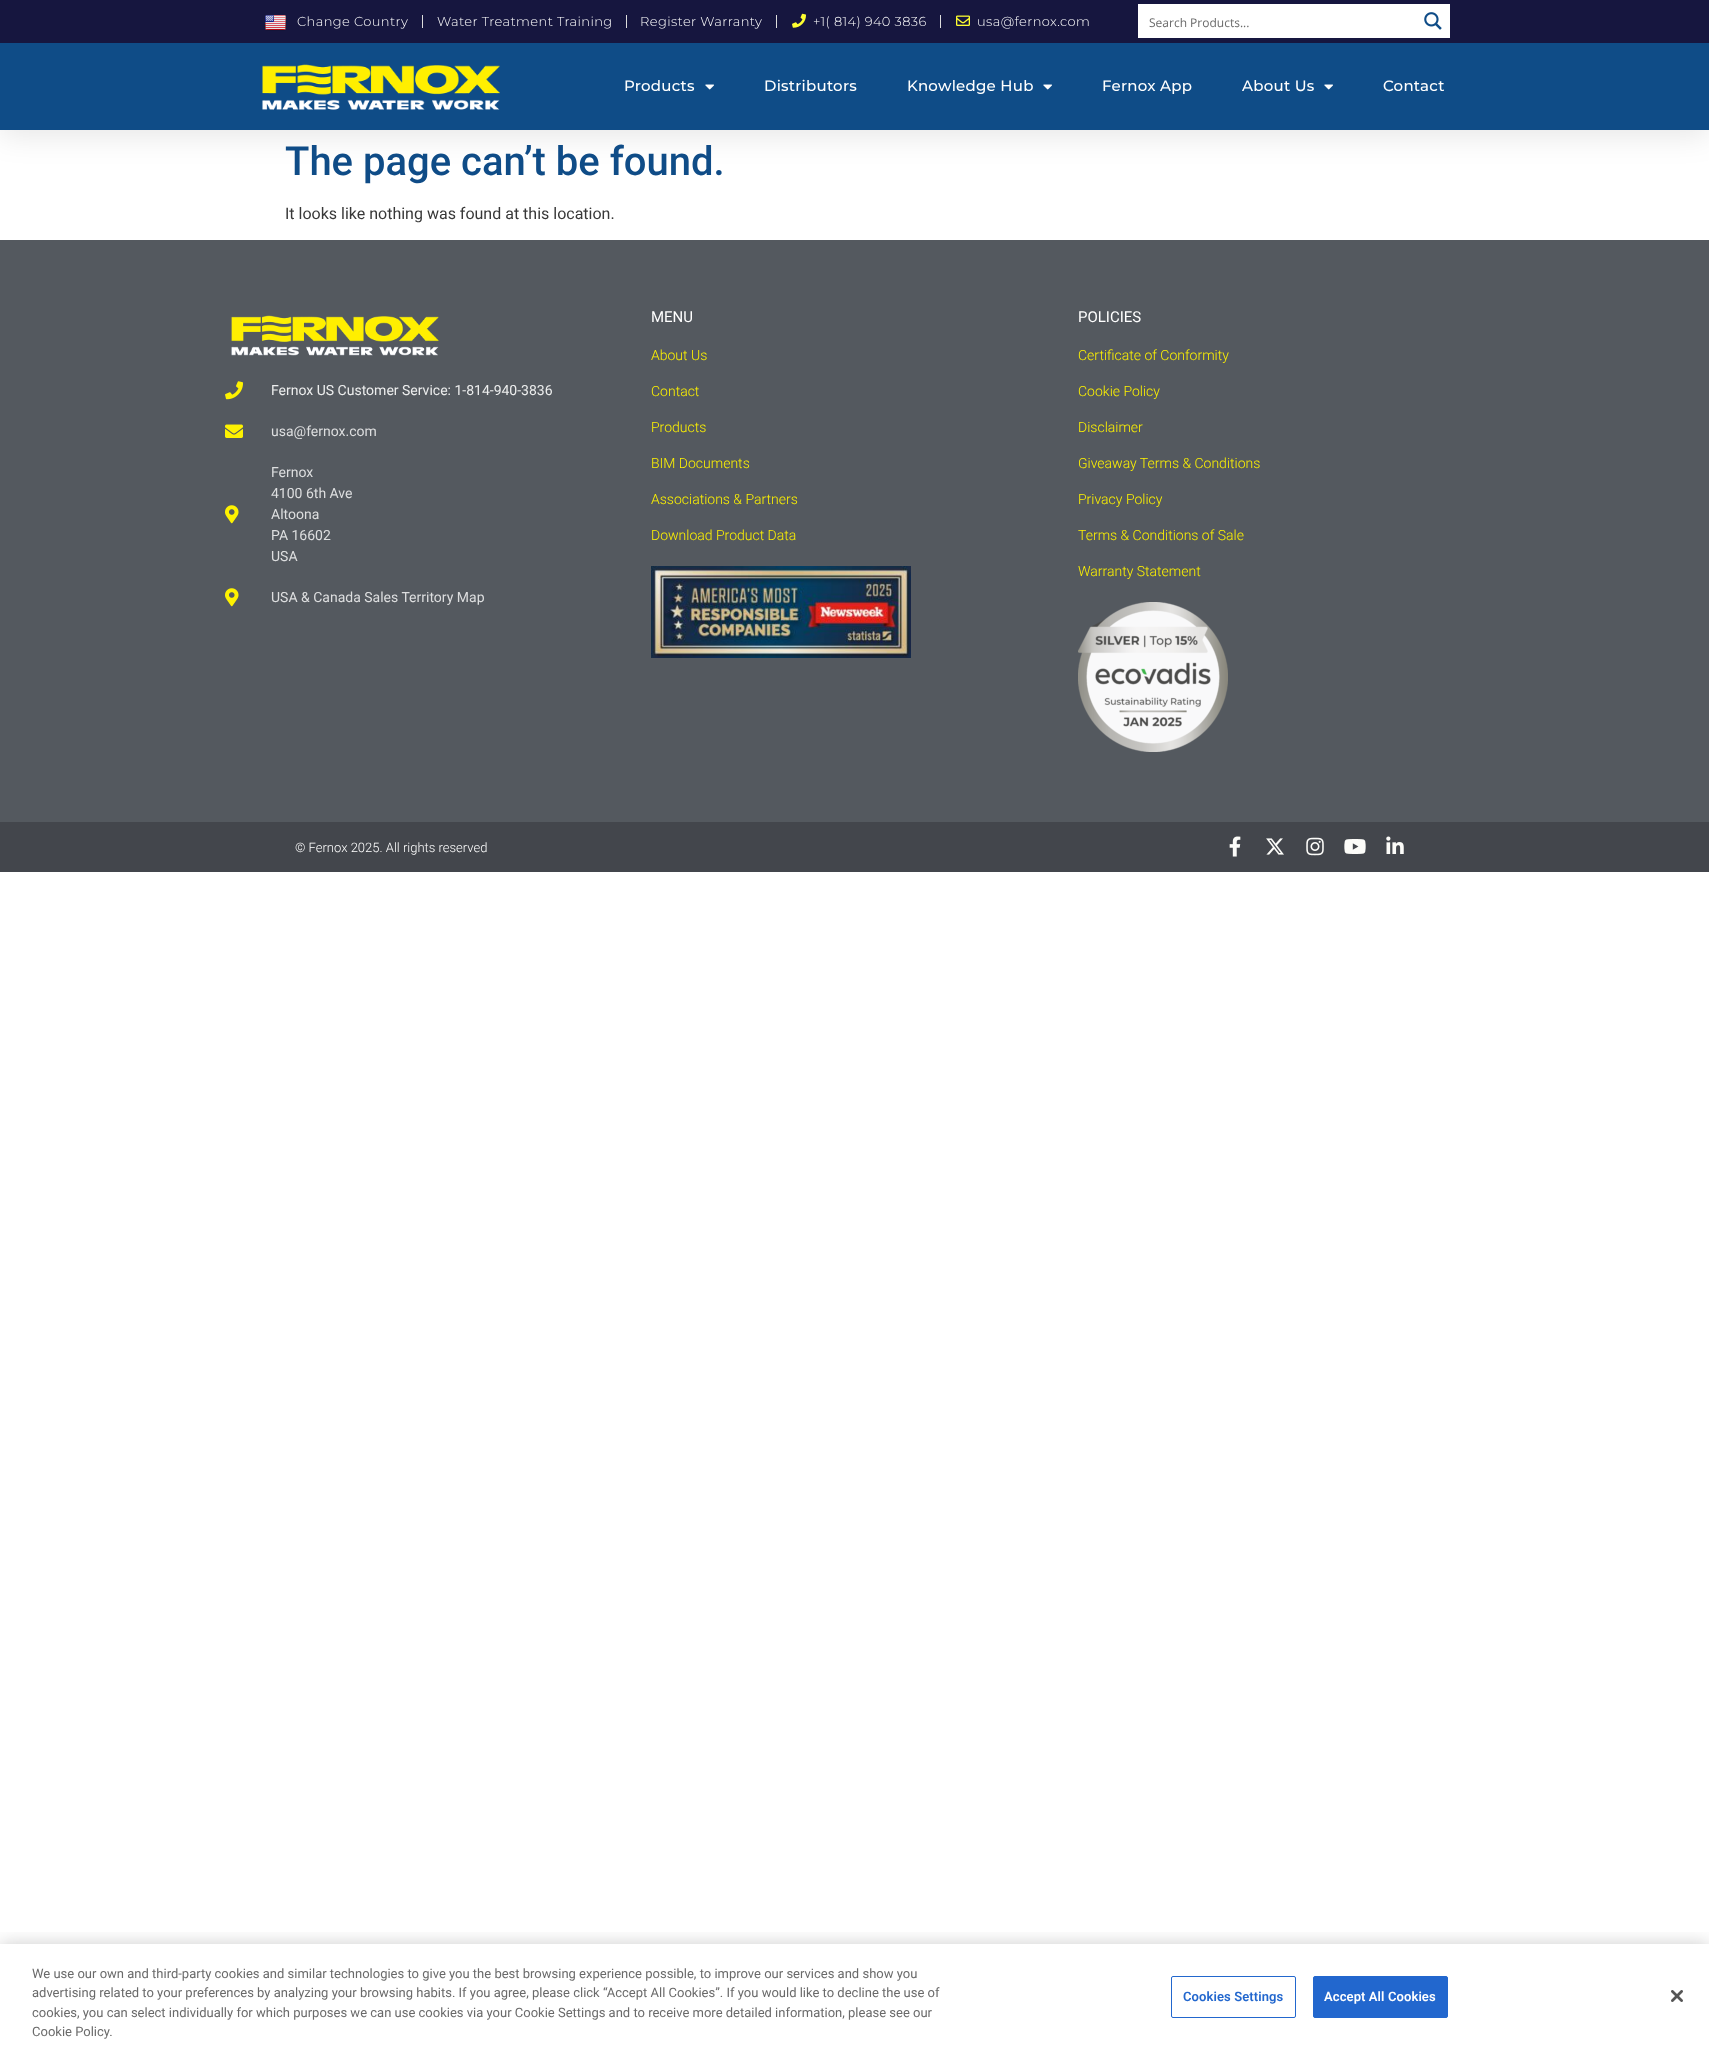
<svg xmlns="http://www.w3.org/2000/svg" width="1709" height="2052">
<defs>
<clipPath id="clip1"><rect x="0" y="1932" width="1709" height="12"/></clipPath>
</defs>
<rect width="100%" height="100%" fill="#fff"/>
<rect y="5" width="1709" height="130" fill="#0000001a" filter="blur(15px)"/>
<rect width="1709" height="43" fill="#16163f"/>
<image x="265" y="15" width="21" height="16" href="media/1.png"/>
<text x="297" y="26" style="font-family:Montserrat;font-size:13px;font-weight:300;letter-spacing:0.4px;fill:#fff">Change Country</text>
<rect x="422" y="15" width="1" height="13" fill="#ddd"/>
<text x="437" y="26" style="font-family:Montserrat;font-size:13px;font-weight:300;letter-spacing:0.4px;fill:#fff">Water Treatment Training</text>
<rect x="626" y="15" width="1" height="13" fill="#ddd"/>
<text x="640" y="26" style="font-family:Montserrat;font-size:13px;font-weight:300;letter-spacing:0.4px;fill:#fff">Register Warranty</text>
<rect x="776" y="15" width="1" height="13" fill="#ddd"/>
<image x="792" y="13" width="14" height="15" href="media/2.png"/>
<text x="813" y="26" style="font-family:Montserrat;font-size:13px;font-weight:300;letter-spacing:0.4px;fill:#fff">+1( 814) 940 3836</text>
<rect x="940" y="15" width="1" height="13" fill="#ddd"/>
<image x="956" y="15" width="14" height="11" href="media/3.png"/>
<text x="977" y="26" style="font-family:Montserrat;font-size:13px;font-weight:300;letter-spacing:0.4px;fill:#fff">usa@fernox.com</text>
<rect x="1138" y="4" width="312" height="34" fill="#fff"/>
<text x="1149" y="27" style="font-family:Open Sans;font-size:12px;fill:#6a6a6a">Search Products...</text>
<image x="1424" y="12" width="18" height="18" href="media/4.png"/>
<rect y="43" width="1709" height="87" fill="#0f4c87"/>
<image x="262" y="64" width="238" height="46" href="media/5.png"/>
<text x="624" y="91" style="font-family:Montserrat;font-size:15px;font-weight:500;letter-spacing:0.25px;fill:#fff">Products</text>
<image x="705" y="84" width="9" height="6" href="media/6.png"/>
<text x="764" y="91" style="font-family:Montserrat;font-size:15px;font-weight:500;letter-spacing:0.25px;fill:#fff">Distributors</text>
<text x="907" y="91" style="font-family:Montserrat;font-size:15px;font-weight:500;letter-spacing:0.25px;fill:#fff">Knowledge Hub</text>
<image x="1043" y="84" width="9" height="6" href="media/6.png"/>
<text x="1102" y="91" style="font-family:Montserrat;font-size:15px;font-weight:500;letter-spacing:0.25px;fill:#fff">Fernox App</text>
<text x="1242" y="91" style="font-family:Montserrat;font-size:15px;font-weight:500;letter-spacing:0.25px;fill:#fff">About Us</text>
<image x="1324" y="84" width="9" height="6" href="media/6.png"/>
<text x="1383" y="91" style="font-family:Montserrat;font-size:15px;font-weight:500;letter-spacing:0.25px;fill:#fff">Contact</text>
<text x="285" y="175" style="font-family:Roboto;font-size:40px;font-weight:500;fill:#0f4c87">The page can’t be found.</text>
<text x="285" y="219" style="font-family:Roboto;font-size:16px;fill:#383838">It looks like nothing was found at this location.</text>
<rect y="240" width="1709" height="582" fill="#54595f"/>
<image x="231" y="315" width="208" height="41" href="media/7.png"/>
<image x="225" y="381" width="18" height="19" href="media/8.png"/>
<text x="271" y="395" style="font-family:Roboto;font-size:14px;fill:#eceded">Fernox US Customer Service: 1-814-940-3836</text>
<image x="225" y="424" width="18" height="14" href="media/9.png"/>
<text x="271" y="436" style="font-family:Roboto;font-size:14px;fill:#dddedf">usa@fernox.com</text>
<image x="225" y="505" width="14" height="19" href="media/10.png"/>
<text x="271" y="477" style="font-family:Roboto;font-size:14px;fill:#dddedf">Fernox</text>
<text x="271" y="498" style="font-family:Roboto;font-size:14px;fill:#dddedf">4100 6th Ave</text>
<text x="271" y="519" style="font-family:Roboto;font-size:14px;fill:#dddedf">Altoona</text>
<text x="271" y="540" style="font-family:Roboto;font-size:14px;fill:#dddedf">PA 16602</text>
<text x="271" y="561" style="font-family:Roboto;font-size:14px;fill:#dddedf">USA</text>
<image x="225" y="588" width="14" height="19" href="media/10.png"/>
<text x="271" y="602" style="font-family:Roboto;font-size:14px;fill:#dddedf">USA &amp; Canada Sales Territory Map</text>
<text x="651" y="322" style="font-family:Roboto;font-size:15px;fill:#fff">MENU</text>
<text x="651" y="360" style="font-family:Roboto;font-size:14px;font-weight:300;fill:#fef200">About Us</text>
<text x="651" y="396" style="font-family:Roboto;font-size:14px;font-weight:300;fill:#fef200">Contact</text>
<text x="651" y="432" style="font-family:Roboto;font-size:14px;font-weight:300;fill:#fef200">Products</text>
<text x="651" y="468" style="font-family:Roboto;font-size:14px;font-weight:300;fill:#fef200">BIM Documents</text>
<text x="651" y="504" style="font-family:Roboto;font-size:14px;font-weight:300;fill:#fef200">Associations &amp; Partners</text>
<text x="651" y="540" style="font-family:Roboto;font-size:14px;font-weight:300;fill:#fef200">Download Product Data</text>
<image x="651" y="566" width="260" height="92" href="media/11.png"/>
<text x="1078" y="322" style="font-family:Roboto;font-size:15px;fill:#fff">POLICIES</text>
<text x="1078" y="360" style="font-family:Roboto;font-size:14px;font-weight:300;fill:#fef200">Certificate of Conformity</text>
<text x="1078" y="396" style="font-family:Roboto;font-size:14px;font-weight:300;fill:#fef200">Cookie Policy</text>
<text x="1078" y="432" style="font-family:Roboto;font-size:14px;font-weight:300;fill:#fef200">Disclaimer</text>
<text x="1078" y="468" style="font-family:Roboto;font-size:14px;font-weight:300;fill:#fef200">Giveaway Terms &amp; Conditions</text>
<text x="1078" y="504" style="font-family:Roboto;font-size:14px;font-weight:300;fill:#fef200">Privacy Policy</text>
<text x="1078" y="540" style="font-family:Roboto;font-size:14px;font-weight:300;fill:#fef200">Terms &amp; Conditions of Sale</text>
<text x="1078" y="576" style="font-family:Roboto;font-size:14px;font-weight:300;fill:#fef200">Warranty Statement</text>
<image x="1078" y="602" width="150" height="150" href="media/12.png"/>
<rect y="822" width="1709" height="50" fill="#43464c"/>
<text x="295" y="852" style="font-family:Roboto;font-size:13px;font-weight:300;fill:#fff">© Fernox 2025. All rights reserved</text>
<image x="1229" y="836" width="12" height="21" href="media/13.png"/>
<image x="1266" y="838" width="18" height="17" href="media/14.png"/>
<image x="1306" y="837" width="18" height="19" href="media/15.png"/>
<image x="1344" y="839" width="22" height="15" href="media/16.png"/>
<image x="1386" y="836" width="18" height="18" href="media/17.png"/>
<g clip-path="url(#clip1)">
<rect y="1944" width="1709" height="108" fill="#00000033" filter="blur(9px)"/>
</g>
<text x="32" y="1978" style="font-family:Roboto;font-size:13px;fill:#6a6a6a">We use our own and third-party cookies and similar technologies to give you the best browsing experience possible, to improve our services and show you</text>
<text x="32" y="1997" style="font-family:Roboto;font-size:13px;fill:#6a6a6a">advertising related to your preferences by analyzing your browsing habits. If you agree, please click “Accept All Cookies”. If you would like to decline the use of</text>
<text x="32" y="2017" style="font-family:Roboto;font-size:13px;fill:#6a6a6a">cookies, you can select individually for which purposes we can use cookies via your Cookie Settings and to receive more detailed information, please see our</text>
<text x="32" y="2036" style="font-family:Roboto;font-size:13px;fill:#6a6a6a">Cookie Policy.</text>
<rect x="1171.5" y="1976.5" width="124" height="41" rx="1.5" fill="none" stroke="#2267ce"/>
<text x="1183" y="2001" style="font-family:Roboto;font-size:13px;font-weight:600;letter-spacing:0.1px;fill:#2267ce">Cookies Settings</text>
<rect x="1313.5" y="1976.5" width="134" height="41" rx="1.5" fill="#2267ce" stroke="#2267ce"/>
<text x="1324" y="2001" style="font-family:Roboto;font-size:13px;font-weight:600;letter-spacing:0.1px;fill:#fff">Accept All Cookies</text>
<image x="1671" y="1990" width="12" height="12" href="media/18.png"/>
</svg>
